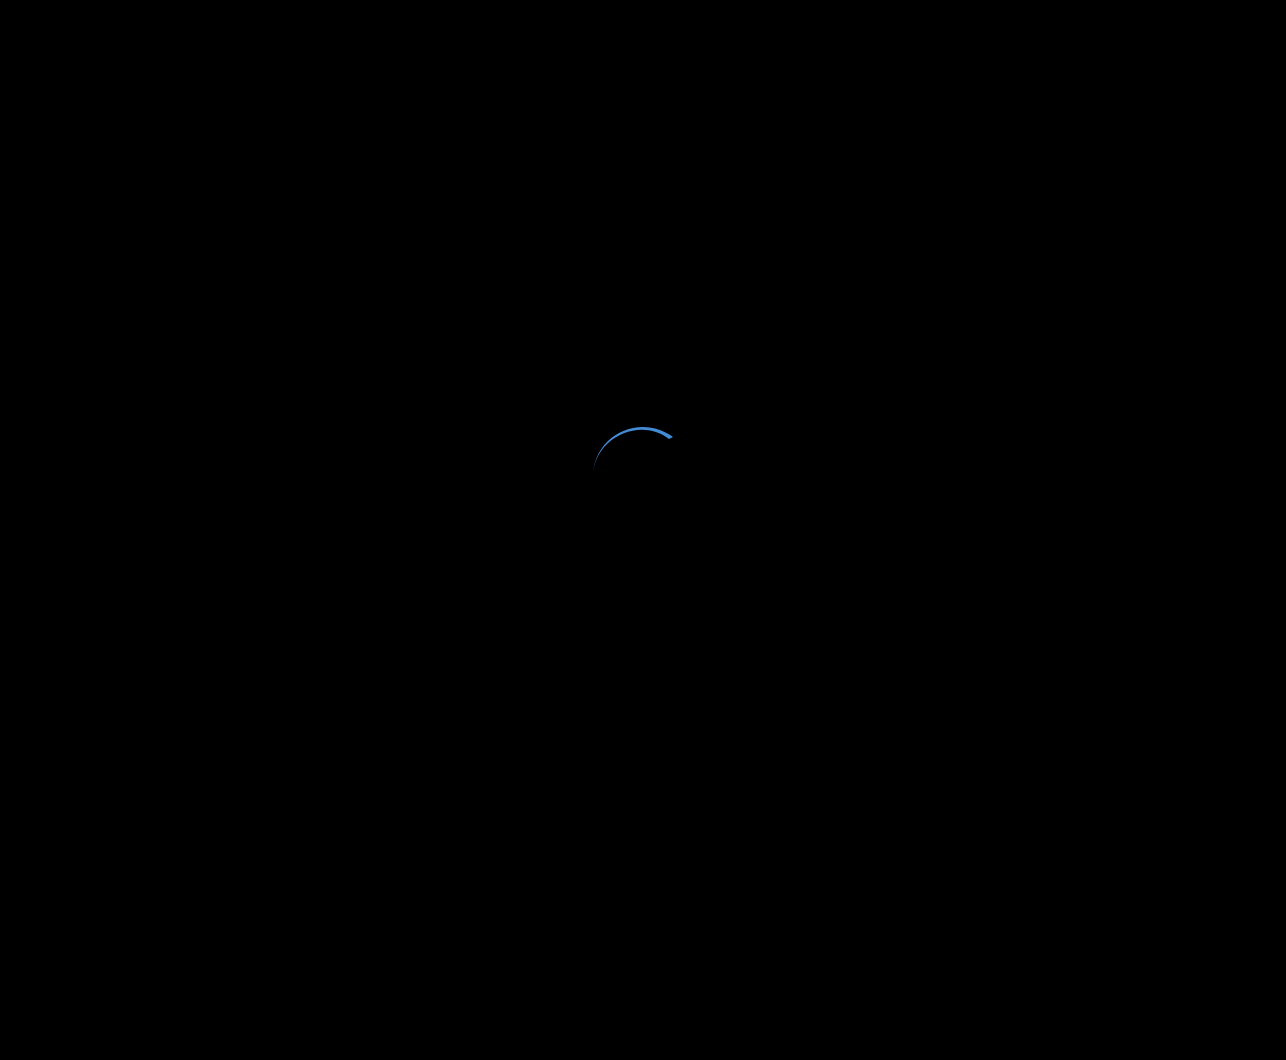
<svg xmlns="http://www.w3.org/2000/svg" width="1286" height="1060">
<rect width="100%" height="100%" fill="#000"/>
<path d="M643 427c-28 0-50 22-50 50c0-38 46-61 76-38l4-2c-8-6-19-10-30-10z" fill="#448bd6"/>
</svg>
